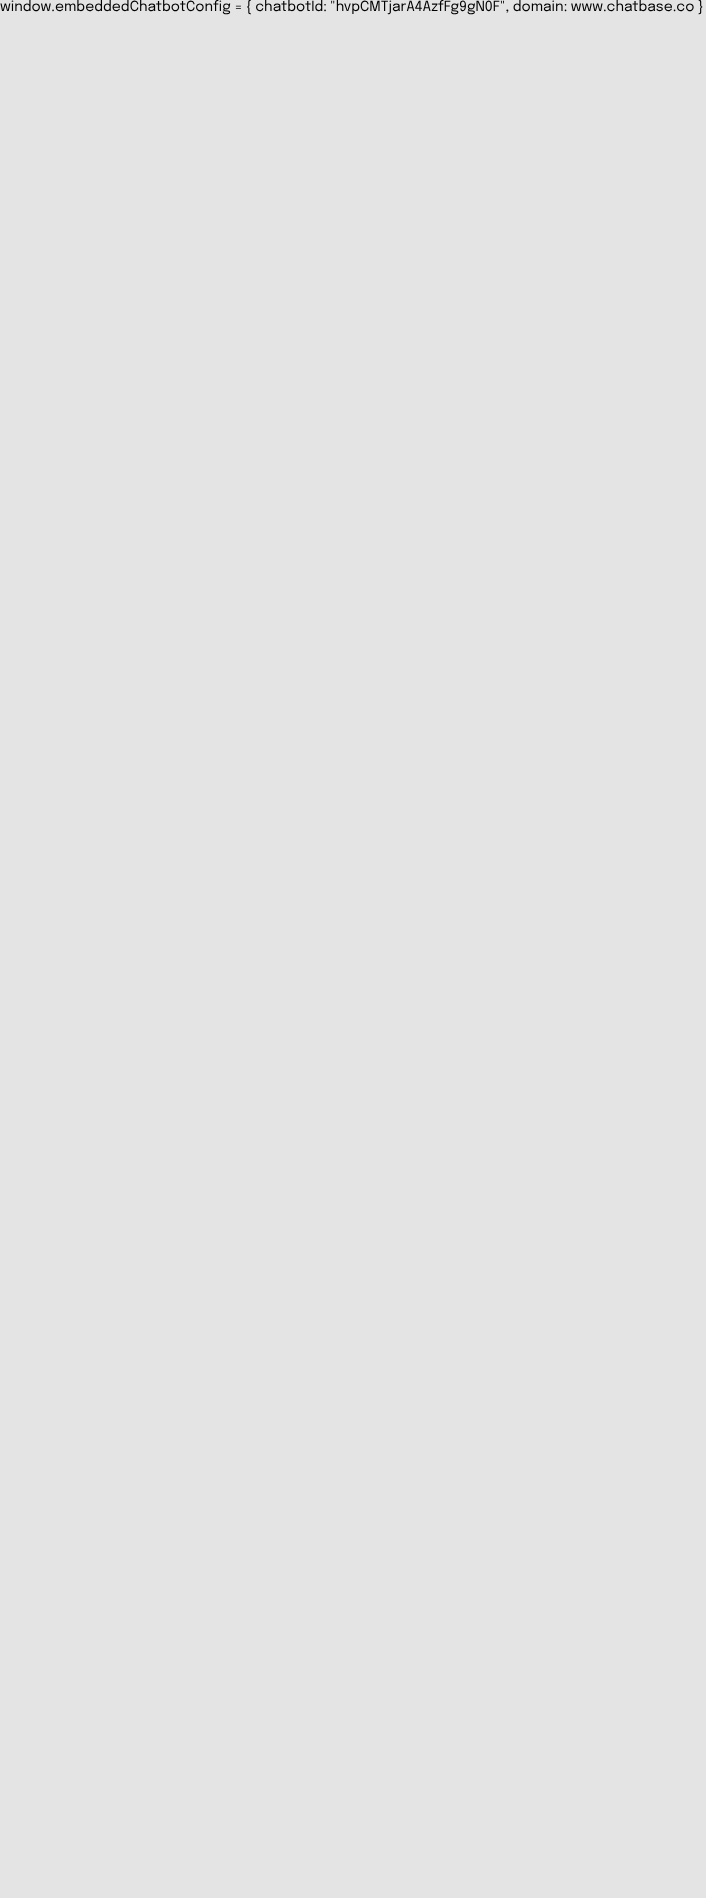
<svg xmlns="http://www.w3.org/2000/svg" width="706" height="1898">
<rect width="100%" height="100%" fill="#e4e4e4"/>
<text x="0" y="11" style="font-family:Epilogue;font-size:14px;fill:#000">window.embeddedChatbotConfig = { chatbotId: "hvpCMTjarA4AzfFg9gN0F", domain: www.chatbase.co }</text>
</svg>
